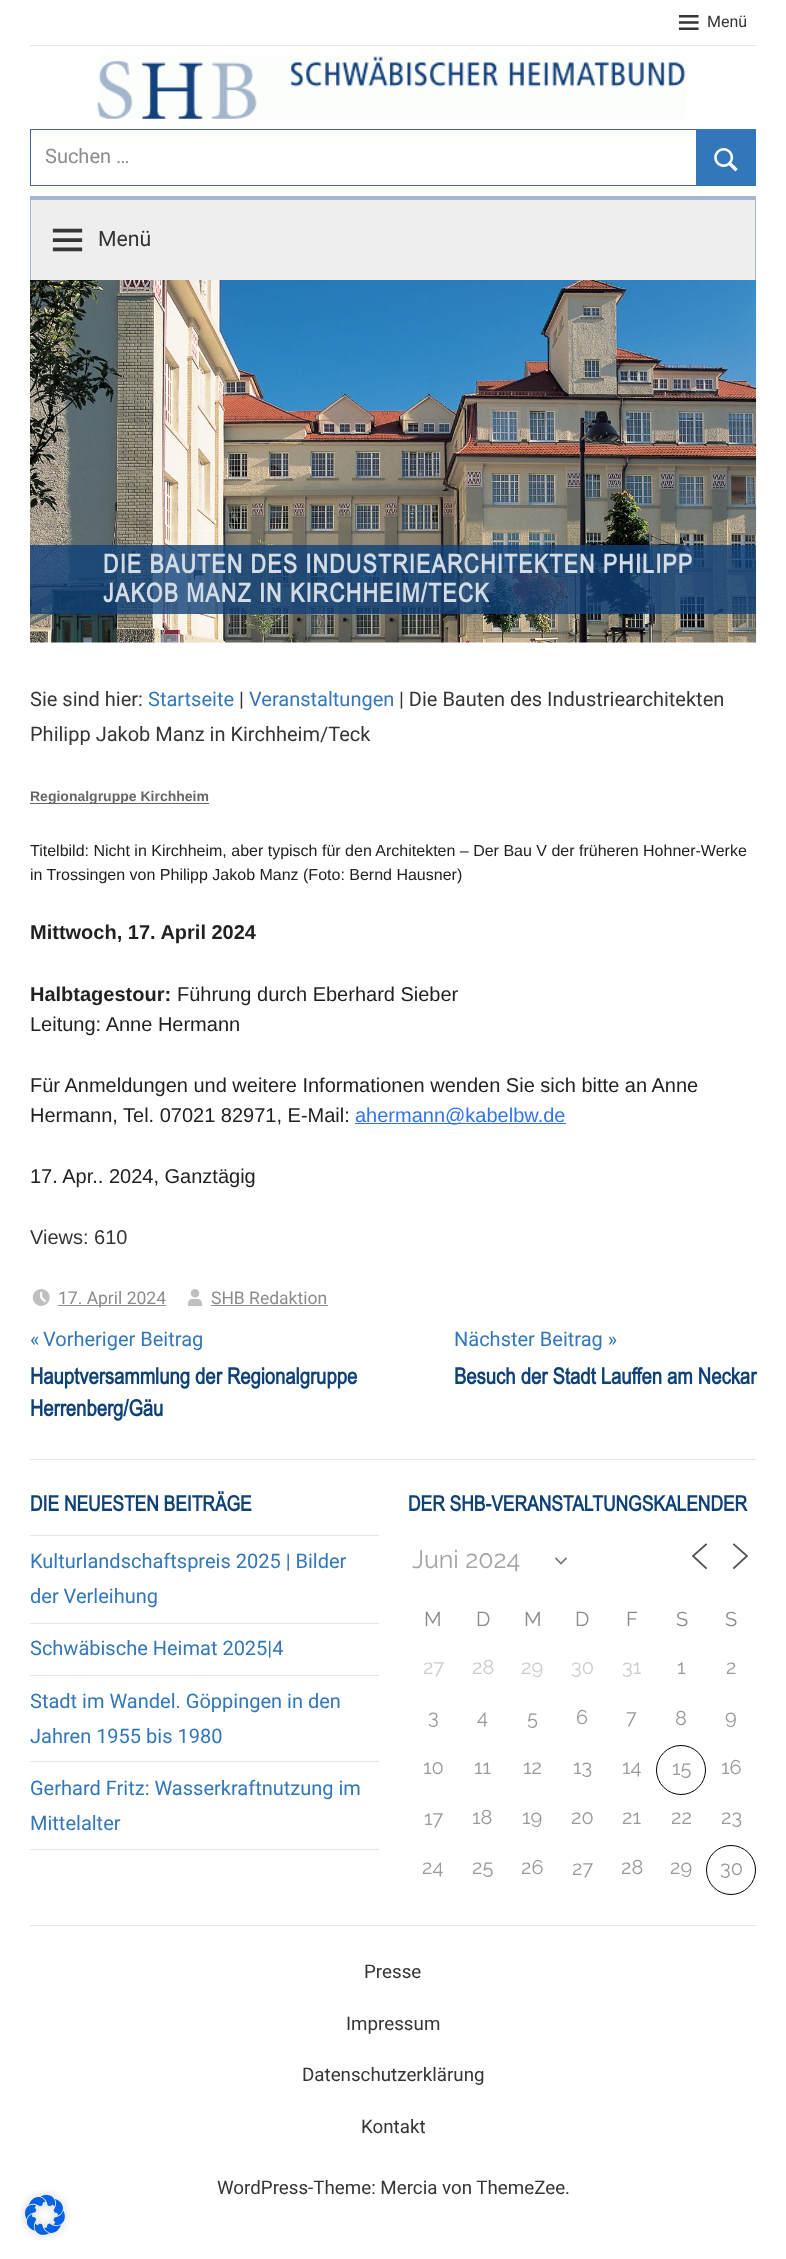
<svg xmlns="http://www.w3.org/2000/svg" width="786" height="2259">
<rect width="100%" height="100%" fill="#fff"/>
<rect x="30" y="45" width="726" height="1" fill="#e6e6e6"/>
<image x="678" y="15" width="21" height="15" href="media/1.png"/>
<text x="707" y="27" style="font-family:Roboto;font-size:16px;fill:#353535">Menü</text>
<image x="97" y="56" width="589" height="63" href="media/2.png"/>
<rect x="30.5" y="129.5" width="725" height="56" fill="none" stroke="#3f6794"/>
<text x="45" y="163" style="font-family:Roboto;font-size:20px;fill:#8c8c8c">Suchen …</text>
<rect x="696" y="129" width="60" height="57" fill="#37b"/>
<image x="714" y="148" width="24" height="24" href="media/3.png"/>
<rect x="31" y="200" width="724" height="80" fill="#eee"/>
<rect x="30" y="196" width="726" height="4" fill="#a7b6d0"/>
<rect x="755" y="196" width="1" height="84" fill="#a7b6d0"/>
<rect x="30" y="196" width="1" height="84" fill="#a7b6d0"/>
<image x="52" y="228" width="31" height="24" href="media/4.png"/>
<text x="98" y="246" style="font-family:Roboto;font-size:21.25px;fill:#353535">Menü</text>
<image x="30" y="280" width="727" height="363" href="media/5.png"/>
<rect x="30" y="545" width="726" height="69" fill="#0f4179cc"/>
<text x="103" y="573" style="font-family:Arial;font-size:26px;font-weight:bold;letter-spacing:1.25px;fill:#d3dbe4">DIE BAUTEN DES INDUSTRIEARCHITEKTEN PHILIPP</text>
<text x="103" y="602" style="font-family:Arial;font-size:26px;font-weight:bold;letter-spacing:1.25px;fill:#d3dbe4">JAKOB MANZ IN KIRCHHEIM/TECK</text>
<text x="30" y="706" style="font-family:Roboto;font-size:20px;fill:#353535">Sie sind hier:</text>
<text x="148" y="706" style="font-family:Roboto;font-size:20px;fill:#37b">Startseite</text>
<text x="239" y="706" style="font-family:Roboto;font-size:20px;fill:#353535">|</text>
<text x="249" y="706" style="font-family:Roboto;font-size:20px;fill:#37b">Veranstaltungen</text>
<text x="399" y="706" style="font-family:Roboto;font-size:20px;fill:#353535">| Die Bauten des Industriearchitekten</text>
<text x="30" y="741" style="font-family:Roboto;font-size:20px;fill:#353535">Philipp Jakob Manz in Kirchheim/Teck</text>
<rect x="30" y="803" width="179" height="1" fill="#666"/>
<text x="30" y="801" style="font-family:Liberation Sans;font-size:14px;font-weight:bold;fill:#666">Regionalgruppe Kirchheim</text>
<text x="30" y="856" style="font-family:Liberation Sans;font-size:16px;fill:#212121">Titelbild: Nicht in Kirchheim, aber typisch für den Architekten – Der Bau V der früheren Hohner-Werke</text>
<text x="30" y="880" style="font-family:Liberation Sans;font-size:16px;fill:#212121">in Trossingen von Philipp Jakob Manz (Foto: Bernd Hausner)</text>
<text x="30" y="939" style="font-family:Liberation Sans;font-size:20px;font-weight:bold;fill:#212121">Mittwoch, 17. April 2024</text>
<text x="30" y="1001" style="font-family:Liberation Sans;font-size:20px;font-weight:bold;fill:#212121">Halbtagestour:</text>
<text x="177" y="1001" style="font-family:Liberation Sans;font-size:20px;fill:#212121">Führung durch Eberhard Sieber</text>
<text x="30" y="1031" style="font-family:Liberation Sans;font-size:20px;fill:#212121">Leitung: Anne Hermann</text>
<text x="30" y="1092" style="font-family:Liberation Sans;font-size:20px;fill:#212121">Für Anmeldungen und weitere Informationen wenden Sie sich bitte an Anne</text>
<text x="30" y="1122" style="font-family:Liberation Sans;font-size:20px;fill:#212121">Hermann, Tel. 07021 82971, E-Mail:</text>
<rect x="355" y="1123" width="211" height="1" fill="#3372f0"/>
<text x="355" y="1122" style="font-family:Liberation Sans;font-size:20px;fill:#3372f0">ahermann@kabelbw.de</text>
<text x="30" y="1183" style="font-family:Liberation Sans;font-size:20px;fill:#212121">17. Apr.. 2024, Ganztägig</text>
<text x="30" y="1244" style="font-family:Liberation Sans;font-size:20px;fill:#353535">Views: 610</text>
<image x="32" y="1289" width="18" height="17" href="media/6.png"/>
<rect x="58" y="1305" width="108" height="1" fill="#8c8c8c"/>
<text x="58" y="1304" style="font-family:Roboto;font-size:17.5px;fill:#8c8c8c">17. April 2024</text>
<image x="188" y="1289" width="14" height="17" href="media/7.png"/>
<text x="211" y="1304" style="font-family:Roboto;font-size:17.5px;fill:#8c8c8c">SHB Redaktion</text>
<rect x="211" y="1305" width="117" height="1" fill="#8c8c8c"/>
<text x="30" y="1346" style="font-family:Roboto;font-size:20px;fill:#37b">«</text>
<text x="43" y="1346" style="font-family:Roboto;font-size:20px;fill:#37b">Vorheriger Beitrag</text>
<text x="30" y="1384" style="font-family:Arial;font-size:22.5px;font-weight:bold;fill:#0f4179">Hauptversammlung der Regionalgruppe</text>
<text x="30" y="1416" style="font-family:Arial;font-size:22.5px;font-weight:bold;fill:#0f4179">Herrenberg/Gäu</text>
<text x="454" y="1346" style="font-family:Roboto;font-size:20px;fill:#37b">Nächster Beitrag »</text>
<text x="454" y="1384" style="font-family:Arial;font-size:22.5px;font-weight:bold;fill:#0f4179">Besuch der Stadt Lauffen am Neckar</text>
<rect x="30" y="1459" width="726" height="1" fill="#e6e6e6"/>
<text x="30" y="1511" style="font-family:Arial;font-size:21.25px;font-weight:bold;fill:#0f4179">DIE NEUESTEN BEITRÄGE</text>
<rect x="30" y="1535" width="349" height="1" fill="#e6e6e6"/>
<text x="30" y="1568" style="font-family:Roboto;font-size:20px;fill:#37b">Kulturlandschaftspreis 2025 | Bilder</text>
<text x="30" y="1603" style="font-family:Roboto;font-size:20px;fill:#37b">der Verleihung</text>
<rect x="30" y="1623" width="349" height="1" fill="#e6e6e6"/>
<text x="30" y="1655" style="font-family:Roboto;font-size:20px;fill:#37b">Schwäbische Heimat 2025|4</text>
<rect x="30" y="1675" width="349" height="1" fill="#e6e6e6"/>
<text x="30" y="1708" style="font-family:Roboto;font-size:20px;fill:#37b">Stadt im Wandel. Göppingen in den</text>
<text x="30" y="1743" style="font-family:Roboto;font-size:20px;fill:#37b">Jahren 1955 bis 1980</text>
<rect x="30" y="1761" width="349" height="1" fill="#e6e6e6"/>
<rect x="30" y="1849" width="349" height="1" fill="#e6e6e6"/>
<text x="30" y="1795" style="font-family:Roboto;font-size:20px;fill:#37b">Gerhard Fritz: Wasserkraftnutzung im</text>
<text x="30" y="1830" style="font-family:Roboto;font-size:20px;fill:#37b">Mittelalter</text>
<text x="408" y="1511" style="font-family:Arial;font-size:21.25px;font-weight:bold;fill:#0f4179">DER SHB-VERANSTALTUNGSKALENDER</text>
<path d="M556 1558.5l5 5l5-5" fill="none" stroke="#777" stroke-width="1.7" stroke-linecap="square"/>
<text x="412" y="1568" style="font-family:Raleway;font-size:25px;fill:#a3a3a3">Juni 2024</text>
<path d="M706 1568l-13-12l13-11.5m28 23.5l13-12l-13-11.5" fill="none" stroke="#555" stroke-width="1.8" stroke-linecap="square"/>
<text x="424" y="1626" style="font-family:Raleway;font-size:20px;fill:#8c8c8c">M</text>
<text x="476" y="1626" style="font-family:Raleway;font-size:20px;fill:#8c8c8c">D</text>
<text x="524" y="1626" style="font-family:Raleway;font-size:20px;fill:#8c8c8c">M</text>
<text x="575" y="1626" style="font-family:Raleway;font-size:20px;fill:#8c8c8c">D</text>
<text x="626" y="1626" style="font-family:Raleway;font-size:20px;fill:#8c8c8c">F</text>
<text x="676" y="1626" style="font-family:Raleway;font-size:20px;fill:#8c8c8c">S</text>
<text x="725" y="1626" style="font-family:Raleway;font-size:20px;fill:#8c8c8c">S</text>
<text x="423" y="1674" style="font-family:Raleway;font-size:20px;fill:#ccc">27</text>
<text x="472" y="1674" style="font-family:Raleway;font-size:20px;fill:#ccc">28</text>
<text x="521" y="1674" style="font-family:Raleway;font-size:20px;fill:#ccc">29</text>
<text x="571" y="1674" style="font-family:Raleway;font-size:20px;fill:#ccc">30</text>
<text x="622" y="1674" style="font-family:Raleway;font-size:20px;fill:#ccc">31</text>
<text x="677" y="1674" style="font-family:Raleway;font-size:20px;fill:#999">1</text>
<text x="726" y="1674" style="font-family:Raleway;font-size:20px;fill:#999">2</text>
<text x="428" y="1724" style="font-family:Raleway;font-size:20px;fill:#999">3</text>
<text x="477" y="1724" style="font-family:Raleway;font-size:20px;fill:#999">4</text>
<text x="527" y="1725" style="font-family:Raleway;font-size:20px;fill:#999">5</text>
<text x="576" y="1724" style="font-family:Raleway;font-size:20px;fill:#999">6</text>
<text x="626" y="1724" style="font-family:Raleway;font-size:20px;fill:#999">7</text>
<text x="675" y="1725" style="font-family:Raleway;font-size:20px;fill:#999">8</text>
<text x="725" y="1724" style="font-family:Raleway;font-size:20px;fill:#999">9</text>
<text x="423" y="1774" style="font-family:Raleway;font-size:20px;fill:#999">10</text>
<text x="474" y="1774" style="font-family:Raleway;font-size:20px;fill:#999">11</text>
<text x="523" y="1774" style="font-family:Raleway;font-size:20px;fill:#999">12</text>
<text x="573" y="1774" style="font-family:Raleway;font-size:20px;fill:#999">13</text>
<text x="622" y="1774" style="font-family:Raleway;font-size:20px;fill:#999">14</text>
<circle cx="681" cy="1770" r="24.5" fill="none" stroke="#000"/>
<text x="672" y="1775" style="font-family:Raleway;font-size:20px;fill:#999">15</text>
<text x="721" y="1774" style="font-family:Raleway;font-size:20px;fill:#999">16</text>
<text x="424" y="1825" style="font-family:Raleway;font-size:20px;fill:#999">17</text>
<text x="472" y="1824" style="font-family:Raleway;font-size:20px;fill:#999">18</text>
<text x="522" y="1824" style="font-family:Raleway;font-size:20px;fill:#999">19</text>
<text x="571" y="1824" style="font-family:Raleway;font-size:20px;fill:#999">20</text>
<text x="622" y="1824" style="font-family:Raleway;font-size:20px;fill:#999">21</text>
<text x="671" y="1824" style="font-family:Raleway;font-size:20px;fill:#999">22</text>
<text x="721" y="1824" style="font-family:Raleway;font-size:20px;fill:#999">23</text>
<text x="422" y="1874" style="font-family:Raleway;font-size:20px;fill:#999">24</text>
<text x="472" y="1874" style="font-family:Raleway;font-size:20px;fill:#999">25</text>
<text x="521" y="1874" style="font-family:Raleway;font-size:20px;fill:#999">26</text>
<text x="572" y="1875" style="font-family:Raleway;font-size:20px;fill:#999">27</text>
<text x="621" y="1874" style="font-family:Raleway;font-size:20px;fill:#999">28</text>
<text x="670" y="1874" style="font-family:Raleway;font-size:20px;fill:#999">29</text>
<circle cx="731" cy="1870" r="24.5" fill="none" stroke="#000"/>
<text x="720" y="1875" style="font-family:Raleway;font-size:20px;fill:#999">30</text>
<rect x="30" y="1925" width="726" height="1" fill="#e6e6e6"/>
<text x="364" y="1978" style="font-family:Roboto;font-size:18.75px;fill:#353535">Presse</text>
<text x="346" y="2030" style="font-family:Roboto;font-size:18.75px;fill:#353535">Impressum</text>
<text x="302" y="2081" style="font-family:Roboto;font-size:18.75px;fill:#353535">Datenschutzerklärung</text>
<text x="361" y="2133" style="font-family:Roboto;font-size:18.75px;fill:#353535">Kontakt</text>
<text x="217" y="2194" style="font-family:Roboto;font-size:18.75px;fill:#353535">WordPress-Theme: Mercia von ThemeZee.</text>
<image x="20" y="2190" width="50" height="50" href="media/8.png"/>
</svg>
